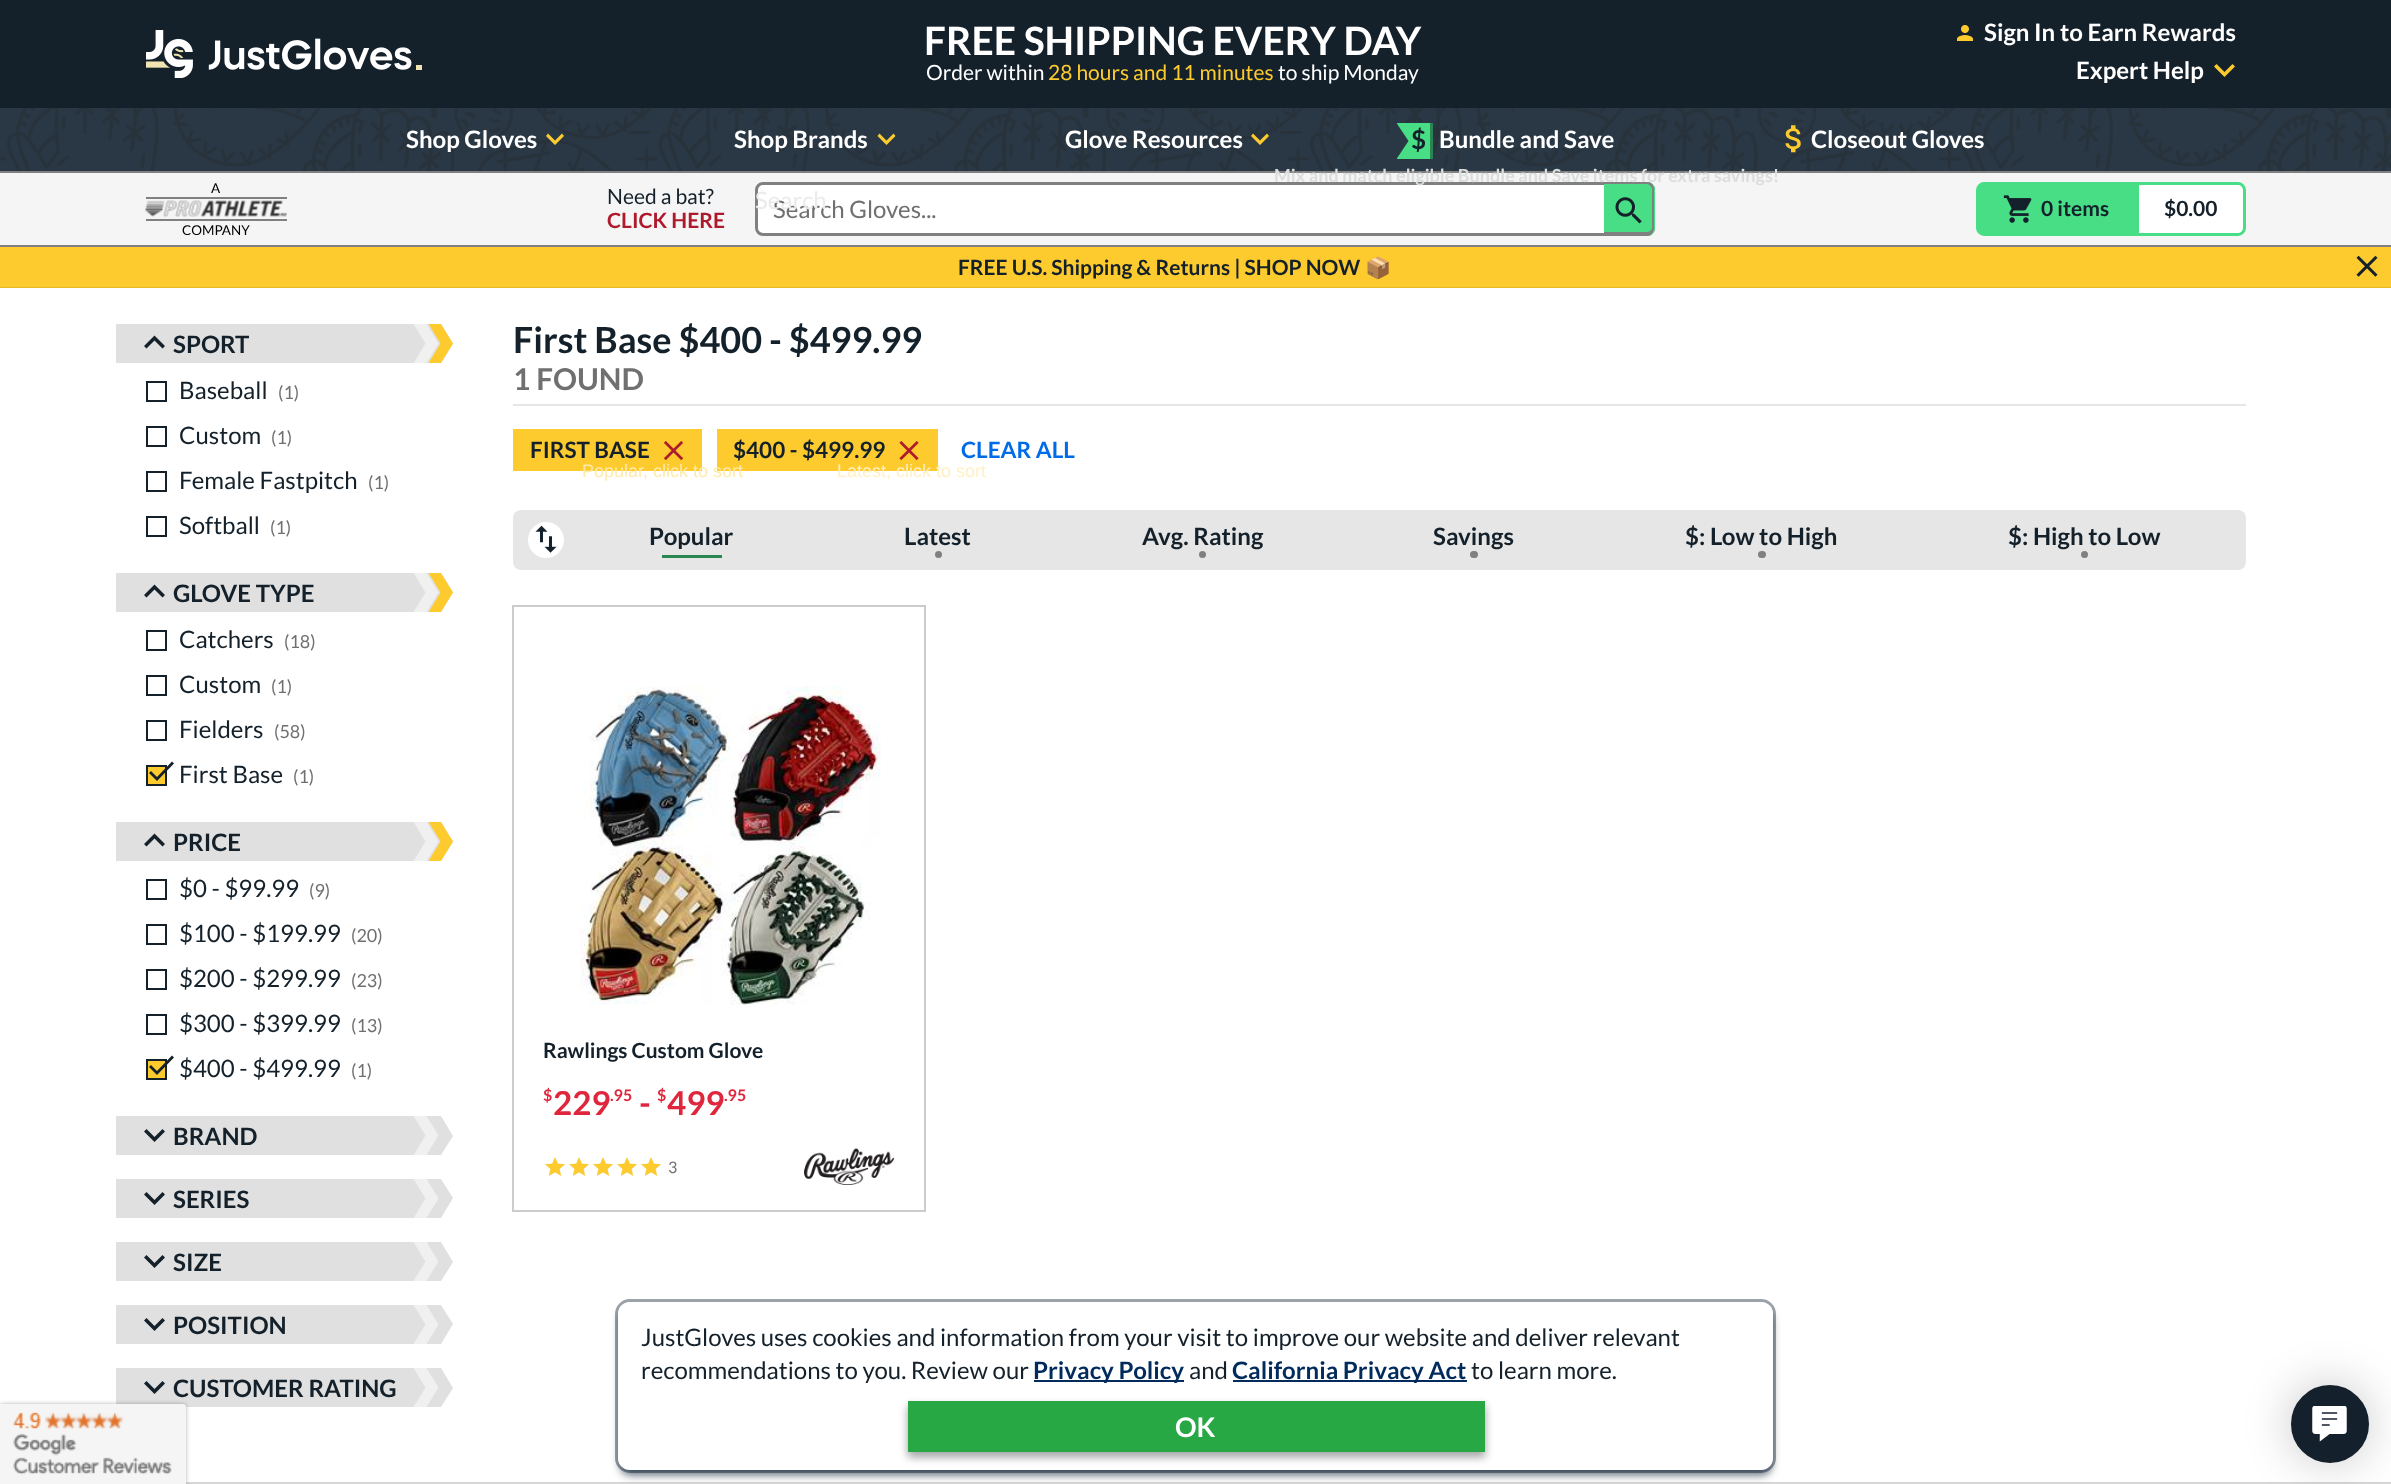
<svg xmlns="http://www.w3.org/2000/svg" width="2391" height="1484">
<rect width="100%" height="100%" fill="#fff"/>
<rect width="2391" height="108" fill="#14212b"/>
<image x="146" y="30" width="276" height="48" href="media/1.png"/>
<text x="924" y="55" style="font-family:Lato;font-size:39px;font-weight:bold;fill:#fff">FREE SHIPPING EVERY DAY</text>
<text x="926" y="80" style="font-family:Lato;font-size:21px;fill:#fff">Order within</text>
<text x="1048" y="80" style="font-family:Lato;font-size:21px;fill:#fecb2e">28 hours and 11 minutes</text>
<text x="1278" y="80" style="font-family:Lato;font-size:21px;fill:#fff">to ship Monday</text>
<image x="1957" y="25" width="16" height="16" href="media/2.png"/>
<text x="1984" y="41" style="font-family:Lato;font-size:24px;font-weight:bold;fill:#fff">Sign In to Earn Rewards</text>
<text x="2076" y="79" style="font-family:Lato;font-size:24px;font-weight:bold;fill:#fff">Expert Help</text>
<path d="M2232.5 64l-8 8l-8-8l-2.5 2.5l10.5 10.5l10.5-10.5z" fill="#fecb2e"/>
<rect y="108" width="2391" height="63" fill="#2a3845"/>
<image x="0" y="108" width="2391" height="63" href="media/3.png"/>
<rect y="171" width="2391" height="2" fill="#808080"/>
<text x="406" y="148" style="font-family:Lato;font-size:24px;font-weight:bold;fill:#fff">Shop Gloves</text>
<path d="M562 133.5l-7 7l-7-7l-2 2.5l9 9l9-9z" fill="#fecb2e"/>
<text x="734" y="148" style="font-family:Lato;font-size:24px;font-weight:bold;fill:#fff">Shop Brands</text>
<path d="M893.5 133.5l-7 7l-7-7l-2 2.5l9 9l9-9z" fill="#fecb2e"/>
<text x="1065" y="148" style="font-family:Lato;font-size:24px;font-weight:bold;fill:#fff">Glove Resources</text>
<path d="M1267 133.5l-7 7l-7-7l-2 2.5l9 9l9-9z" fill="#fecb2e"/>
<rect x="1397" y="123" width="33" height="36" fill="#47de86"/>
<rect x="1430" y="123" width="3" height="36" fill="#298650"/>
<path d="M1396.5 159v-36l12 18z" fill="#2a3845"/>
<text x="1411" y="149" style="font-family:Lato;font-size:26px;font-weight:bold;fill:#14212b">$</text>
<text x="1439" y="148" style="font-family:Lato;font-size:24px;font-weight:bold;fill:#fff">Bundle and Save</text>
<rect y="173" width="2391" height="72" fill="#f5f5f5"/>
<rect x="756.5" y="183.5" width="897" height="51" rx="6.5" fill="#fff" stroke="#808080" stroke-width="3"/>
<path d="M1604 182h43c4.5 0 8 3.5 8 8v38c0 4.5-3.5 8-8 8h-43z" fill="#47de86"/>
<path d="M1604 182h43c4 0 7 3 7 7v39c0 4-3 8-7 8h-43zm0 2h43c2 0 5 3 5 5v39c0 2-3 4-5 4h-43z" fill="#808080" fill-rule="evenodd"/>
<text x="1274" y="182" style="font-family:Lato;font-size:18px;font-weight:bold;fill:#dcdddd">Mix and match eligible Bundle and Save items for extra savings!</text>
<image x="1785" y="125" width="16" height="28" href="media/4.png"/>
<text x="1811" y="148" style="font-family:Lato;font-size:24px;font-weight:bold;fill:#fff">Closeout Gloves</text>
<rect y="245" width="2391" height="2" fill="#808080"/>
<text x="211" y="193" style="font-family:Lato;font-size:13.5px;fill:#000">A</text>
<rect x="146" y="197" width="141" height="2" fill="#808080"/>
<rect x="146" y="219" width="141" height="2" fill="#808080"/>
<image x="145" y="200" width="142" height="17" href="media/5.png"/>
<text x="182" y="235" style="font-family:Lato;font-size:13.5px;fill:#000">COMPANY</text>
<text x="607" y="204" style="font-family:Lato;font-size:21px;fill:#14212b">Need a bat?</text>
<text x="607" y="228" style="font-family:Lato;font-size:21px;font-weight:bold;fill:#ae1a2b">CLICK HERE</text>
<text x="773" y="218" style="font-family:Lato;font-size:24px;fill:#707070">Search Gloves...</text>
<text x="755" y="209" style="font-family:Lato;font-size:24px;fill:#ebebeb">Search</text>
<image x="1615" y="197" width="27" height="27" href="media/6.png"/>
<path d="M1984 183.5h150.5v51h-150.5c-3.5 0-6.5-3-6.5-6.5v-38c0-3.5 3-6.5 6.5-6.5z" fill="#47de86" stroke="#47de86" stroke-width="3"/>
<image x="2003" y="195" width="29" height="28" href="media/7.png"/>
<text x="2041" y="216" style="font-family:Lato;font-size:21px;font-weight:bold;fill:#14212b">0 items</text>
<path d="M2137.5 183.5h100.5c3.5 0 6.5 3 6.5 6.5v38c0 3.5-3 6.5-6.5 6.5h-100.5z" fill="#fff" stroke="#47de86" stroke-width="3"/>
<text x="2164" y="216" style="font-family:Lato;font-size:21px;font-weight:bold;fill:#14212b">$0.00</text>
<rect y="247" width="2391" height="40" fill="#fecb2e"/>
<text x="958" y="275" style="font-family:Lato;font-size:21px;font-weight:bold;fill:#14212b">FREE U.S. Shipping &amp; Returns | SHOP NOW</text>
<text x="1365" y="275" style="font-family:Noto Color Emoji;font-size:21px;font-weight:bold;fill:#14212b">📦</text>
<image x="2356" y="255" width="22" height="22" href="media/8.png"/>
<rect y="287" width="2391" height="1" fill="#e5b729"/>
<path d="M116 324v39h325l12-19l-12-20z" fill="#e0e0e0"/>
<path d="M146.5 348.5l8-8l8 8l2.5-2.5l-10.5-10.5l-10.5 10.5z" fill="#14212b"/>
<text x="173" y="353" style="font-family:Lato;font-size:24px;font-weight:bold;fill:#14212b">SPORT</text>
<path d="M441 324l12 19.5l-12 19.5h-12.5l12-19.5l-12-19.5z" fill="#fecb2e"/>
<path d="M413.5 363l12-19.5l-12-19.5h13l12 19.5l-12 19.5z" fill="#f0f0f0"/>
<rect x="147" y="382" width="19" height="19" fill="none" stroke="#14212b" stroke-width="2"/>
<text x="179" y="399" style="font-family:Lato;font-size:24px;fill:#14212b">Baseball</text>
<text x="278" y="399" style="font-family:Lato;font-size:18px;fill:#707070">(1)</text>
<rect x="147" y="427" width="19" height="19" fill="none" stroke="#14212b" stroke-width="2"/>
<text x="179" y="444" style="font-family:Lato;font-size:24px;fill:#14212b">Custom</text>
<text x="271" y="444" style="font-family:Lato;font-size:18px;fill:#707070">(1)</text>
<rect x="147" y="472" width="19" height="19" fill="none" stroke="#14212b" stroke-width="2"/>
<text x="179" y="489" style="font-family:Lato;font-size:24px;fill:#14212b">Female Fastpitch</text>
<text x="368" y="489" style="font-family:Lato;font-size:18px;fill:#707070">(1)</text>
<rect x="147" y="517" width="19" height="19" fill="none" stroke="#14212b" stroke-width="2"/>
<text x="179" y="534" style="font-family:Lato;font-size:24px;fill:#14212b">Softball</text>
<text x="270" y="534" style="font-family:Lato;font-size:18px;fill:#707070">(1)</text>
<path d="M116 573v39h325l12-20l-12-19z" fill="#e0e0e0"/>
<path d="M146.5 597.5l8-8l8 8l2.5-2.5l-10.5-10.5l-10.5 10.5z" fill="#14212b"/>
<text x="173" y="602" style="font-family:Lato;font-size:24px;font-weight:bold;fill:#14212b">GLOVE TYPE</text>
<path d="M441 573l12 19.5l-12 19.5h-12.5l12-19.5l-12-19.5z" fill="#fecb2e"/>
<path d="M413.5 612l12-19.5l-12-19.5h13l12 19.5l-12 19.5z" fill="#f0f0f0"/>
<rect x="147" y="631" width="19" height="19" fill="none" stroke="#14212b" stroke-width="2"/>
<text x="179" y="648" style="font-family:Lato;font-size:24px;fill:#14212b">Catchers</text>
<text x="284" y="648" style="font-family:Lato;font-size:18px;fill:#707070">(18)</text>
<rect x="147" y="676" width="19" height="19" fill="none" stroke="#14212b" stroke-width="2"/>
<text x="179" y="693" style="font-family:Lato;font-size:24px;fill:#14212b">Custom</text>
<text x="271" y="693" style="font-family:Lato;font-size:18px;fill:#707070">(1)</text>
<rect x="147" y="721" width="19" height="19" fill="none" stroke="#14212b" stroke-width="2"/>
<text x="179" y="738" style="font-family:Lato;font-size:24px;fill:#14212b">Fielders</text>
<text x="274" y="738" style="font-family:Lato;font-size:18px;fill:#707070">(58)</text>
<rect x="147" y="766" width="19" height="19" fill="#fecb2e" stroke="#14212b" stroke-width="2"/>
<path d="M157 777l-6-6l-2 2l8 8l17-17.5l-2-2z" fill="#14212b"/>
<text x="179" y="783" style="font-family:Lato;font-size:24px;fill:#14212b">First Base</text>
<text x="293" y="783" style="font-family:Lato;font-size:18px;fill:#707070">(1)</text>
<path d="M116 822v39h325l12-19l-12-20z" fill="#e0e0e0"/>
<path d="M146.5 846.5l8-8l8 8l2.5-2.5l-10.5-10.5l-10.5 10.5z" fill="#14212b"/>
<text x="173" y="851" style="font-family:Lato;font-size:24px;font-weight:bold;fill:#14212b">PRICE</text>
<path d="M441 822l12 19.5l-12 19.5h-12.5l12-19.5l-12-19.5z" fill="#fecb2e"/>
<path d="M413.5 861l12-19.5l-12-19.5h13l12 19.5l-12 19.5z" fill="#f0f0f0"/>
<rect x="147" y="880" width="19" height="19" fill="none" stroke="#14212b" stroke-width="2"/>
<text x="179" y="897" style="font-family:Lato;font-size:24px;fill:#14212b">$0 - $99.99</text>
<text x="309" y="897" style="font-family:Lato;font-size:18px;fill:#707070">(9)</text>
<rect x="147" y="925" width="19" height="19" fill="none" stroke="#14212b" stroke-width="2"/>
<text x="179" y="942" style="font-family:Lato;font-size:24px;fill:#14212b">$100 - $199.99</text>
<text x="351" y="942" style="font-family:Lato;font-size:18px;fill:#707070">(20)</text>
<rect x="147" y="970" width="19" height="19" fill="none" stroke="#14212b" stroke-width="2"/>
<text x="179" y="987" style="font-family:Lato;font-size:24px;fill:#14212b">$200 - $299.99</text>
<text x="351" y="987" style="font-family:Lato;font-size:18px;fill:#707070">(23)</text>
<rect x="147" y="1015" width="19" height="19" fill="none" stroke="#14212b" stroke-width="2"/>
<text x="179" y="1032" style="font-family:Lato;font-size:24px;fill:#14212b">$300 - $399.99</text>
<text x="351" y="1032" style="font-family:Lato;font-size:18px;fill:#707070">(13)</text>
<rect x="147" y="1060" width="19" height="19" fill="#fecb2e" stroke="#14212b" stroke-width="2"/>
<path d="M157 1071l-6-6l-2 2l8 8l17-17.5l-2-2z" fill="#14212b"/>
<text x="179" y="1077" style="font-family:Lato;font-size:24px;fill:#14212b">$400 - $499.99</text>
<text x="351" y="1077" style="font-family:Lato;font-size:18px;fill:#707070">(1)</text>
<path d="M116 1116v39h325l12-19l-12-20z" fill="#e0e0e0"/>
<path d="M162.5 1129l-8 8l-8-8l-2.5 2.5l10.5 10.5l10.5-10.5z" fill="#14212b"/>
<text x="173" y="1145" style="font-family:Lato;font-size:24px;font-weight:bold;fill:#14212b">BRAND</text>
<path d="M413.5 1155l12-19.5l-12-19.5h13l12 19.5l-12 19.5z" fill="#f0f0f0"/>
<path d="M116 1179v39h325l12-20l-12-19z" fill="#e0e0e0"/>
<path d="M162.5 1192l-8 8l-8-8l-2.5 2.5l10.5 10.5l10.5-10.5z" fill="#14212b"/>
<text x="173" y="1208" style="font-family:Lato;font-size:24px;font-weight:bold;fill:#14212b">SERIES</text>
<path d="M413.5 1218l12-19.5l-12-19.5h13l12 19.5l-12 19.5z" fill="#f0f0f0"/>
<path d="M116 1242v39h325l12-19l-12-20z" fill="#e0e0e0"/>
<path d="M162.5 1255l-8 8l-8-8l-2.5 2.5l10.5 10.5l10.5-10.5z" fill="#14212b"/>
<text x="173" y="1271" style="font-family:Lato;font-size:24px;font-weight:bold;fill:#14212b">SIZE</text>
<path d="M413.5 1281l12-19.5l-12-19.5h13l12 19.5l-12 19.5z" fill="#f0f0f0"/>
<path d="M116 1305v39h325l12-20l-12-19z" fill="#e0e0e0"/>
<path d="M162.5 1318l-8 8l-8-8l-2.5 2.5l10.5 10.5l10.5-10.5z" fill="#14212b"/>
<text x="173" y="1334" style="font-family:Lato;font-size:24px;font-weight:bold;fill:#14212b">POSITION</text>
<path d="M413.5 1344l12-19.5l-12-19.5h13l12 19.5l-12 19.5z" fill="#f0f0f0"/>
<path d="M116 1368v39h325l12-19l-12-20z" fill="#e0e0e0"/>
<path d="M162.5 1381l-8 8l-8-8l-2.5 2.5l10.5 10.5l10.5-10.5z" fill="#14212b"/>
<text x="173" y="1397" style="font-family:Lato;font-size:24px;font-weight:bold;fill:#14212b">CUSTOMER RATING</text>
<path d="M413.5 1407l12-19.5l-12-19.5h13l12 19.5l-12 19.5z" fill="#f0f0f0"/>
<rect x="513" y="404" width="1733" height="2" fill="#e6e6e6"/>
<text x="513" y="353" style="font-family:Lato;font-size:36px;font-weight:bold;fill:#14212b">First Base $400 - $499.99</text>
<text x="513" y="390" style="font-family:Lato;font-size:30px;font-weight:bold;fill:#707070">1 FOUND</text>
<rect x="513" y="429" width="189" height="42" fill="#fecb2e"/>
<text x="530" y="458" style="font-family:Lato;font-size:22.5px;font-weight:bold;fill:#14212b">FIRST BASE</text>
<image x="664" y="441" width="19" height="20" href="media/9.png"/>
<rect x="717" y="429" width="221" height="42" fill="#fecb2e"/>
<text x="733" y="458" style="font-family:Lato;font-size:22.5px;font-weight:bold;fill:#14212b">$400 - $499.99</text>
<image x="899" y="441" width="20" height="20" href="media/10.png"/>
<text x="961" y="458" style="font-family:Lato;font-size:22.5px;font-weight:bold;fill:#006be9">CLEAR ALL</text>
<rect x="513" y="510" width="1733" height="60" rx="8" fill="#e6e6e6"/>
<circle cx="546" cy="540" r="18" fill="#fff"/>
<image x="535" y="525" width="22" height="28" href="media/11.png"/>
<text x="582" y="477" style="font-family:Liberation Sans;font-size:18px;fill:#ffeaa9">Popular, click to sort</text>
<text x="649" y="545" style="font-family:Lato;font-size:24px;font-weight:bold;fill:#14212b">Popular</text>
<rect x="662" y="555" width="60" height="3" fill="#298650"/>
<text x="837" y="477" style="font-family:Liberation Sans;font-size:18px;fill:#fff0c4">Latest, click to sort</text>
<text x="904" y="545" style="font-family:Lato;font-size:24px;font-weight:bold;fill:#14212b">Latest</text>
<circle cx="938.5" cy="554.5" r="3.5" fill="#808080"/>
<text x="1142" y="545" style="font-family:Lato;font-size:24px;font-weight:bold;fill:#14212b">Avg. Rating</text>
<circle cx="1202.5" cy="554.5" r="3.5" fill="#808080"/>
<text x="1433" y="545" style="font-family:Lato;font-size:24px;font-weight:bold;fill:#14212b">Savings</text>
<rect x="1470" y="551" width="8" height="7" rx="3.5" fill="#808080"/>
<text x="1685" y="545" style="font-family:Lato;font-size:24px;font-weight:bold;fill:#14212b">$: Low to High</text>
<rect x="1758" y="551" width="8" height="7" rx="3.5" fill="#808080"/>
<text x="2008" y="545" style="font-family:Lato;font-size:24px;font-weight:bold;fill:#14212b">$: High to Low</text>
<circle cx="2084.5" cy="554.5" r="3.5" fill="#808080"/>
<image x="804" y="1148" width="90" height="37" href="media/15.png"/>
<rect x="513" y="606" width="412" height="605" fill="none" stroke="#ccc" stroke-width="2"/>
<image x="580" y="686" width="301" height="319" href="media/12.png"/>
<text x="543" y="1058" style="font-family:Lato;font-size:21px;font-weight:bold;fill:#14212b">Rawlings Custom Glove</text>
<text x="543" y="1101" style="font-family:Lato;font-size:16px;font-weight:bold;fill:#df263c">$</text>
<text x="553" y="1115" style="font-family:Lato;font-size:33px;font-weight:bold;fill:#df263c">229</text>
<text x="610" y="1101" style="font-family:Lato;font-size:16px;font-weight:bold;fill:#df263c">.95</text>
<text x="639" y="1115" style="font-family:Lato;font-size:33px;font-weight:bold;fill:#df263c">-</text>
<text x="657" y="1101" style="font-family:Lato;font-size:16px;font-weight:bold;fill:#df263c">$</text>
<text x="667" y="1115" style="font-family:Lato;font-size:33px;font-weight:bold;fill:#df263c">499</text>
<text x="724" y="1101" style="font-family:Lato;font-size:16px;font-weight:bold;fill:#df263c">.95</text>
<image x="545" y="1157" width="116" height="19" href="media/13.png"/>
<image x="545" y="1157" width="116" height="19" href="media/14.png"/>
<text x="668" y="1173" style="font-family:Lato;font-size:16px;fill:#707070">3</text>
<rect x="186" y="1482" width="2205" height="2" fill="#d6d6d6"/>
<rect x="2289" y="1383" width="81" height="81" rx="40.5" fill="#00000033" filter="blur(22.5px)"/>
<circle cx="2330" cy="1424" r="38" fill="#14202b" stroke="#14202b" stroke-width="2"/>
<image x="2312" y="1406" width="35" height="36" href="media/16.png"/>
<rect y="1404" width="186" height="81" rx="3" fill="#0000004d" filter="blur(2px)"/>
<image x="0" y="1404" width="186" height="80" href="media/17.png"/>
<rect x="620" y="1310" width="1152" height="165" rx="11" fill="#06182ca6" filter="blur(4.5px)"/>
<rect x="616.5" y="1300.5" width="1158" height="171" rx="13.5" fill="none" stroke="#06182c66" stroke-width="3"/>
<rect x="618" y="1302" width="1155" height="168" rx="12" fill="#fff"/>
<text x="641" y="1346" style="font-family:Lato;font-size:24px;fill:#14212b">JustGloves uses cookies and information from your visit to improve our website and deliver relevant</text>
<text x="641" y="1379" style="font-family:Lato;font-size:24px;fill:#14212b">recommendations to you. Review our</text>
<rect x="1034" y="1380" width="150" height="2" fill="#002b5c"/>
<text x="1033" y="1379" style="font-family:Lato;font-size:24px;font-weight:bold;fill:#002b5c">Privacy Policy</text>
<text x="1189" y="1379" style="font-family:Lato;font-size:24px;fill:#14212b">and</text>
<rect x="1233" y="1380" width="234" height="2" fill="#002b5c"/>
<text x="1232" y="1379" style="font-family:Lato;font-size:24px;font-weight:bold;fill:#002b5c">California Privacy Act</text>
<text x="1471" y="1379" style="font-family:Lato;font-size:24px;fill:#14212b">to learn more.</text>
<rect x="908" y="1406" width="577" height="51" fill="#0000003b" filter="blur(4.5px)"/>
<rect x="908" y="1406" width="577" height="51" fill="#00000029" filter="blur(4.5px)"/>
<rect x="908" y="1401" width="577" height="51" fill="#28a745"/>
<text x="1175" y="1437" style="font-family:Lato;font-size:27px;font-weight:bold;fill:#fff">OK</text>
</svg>
